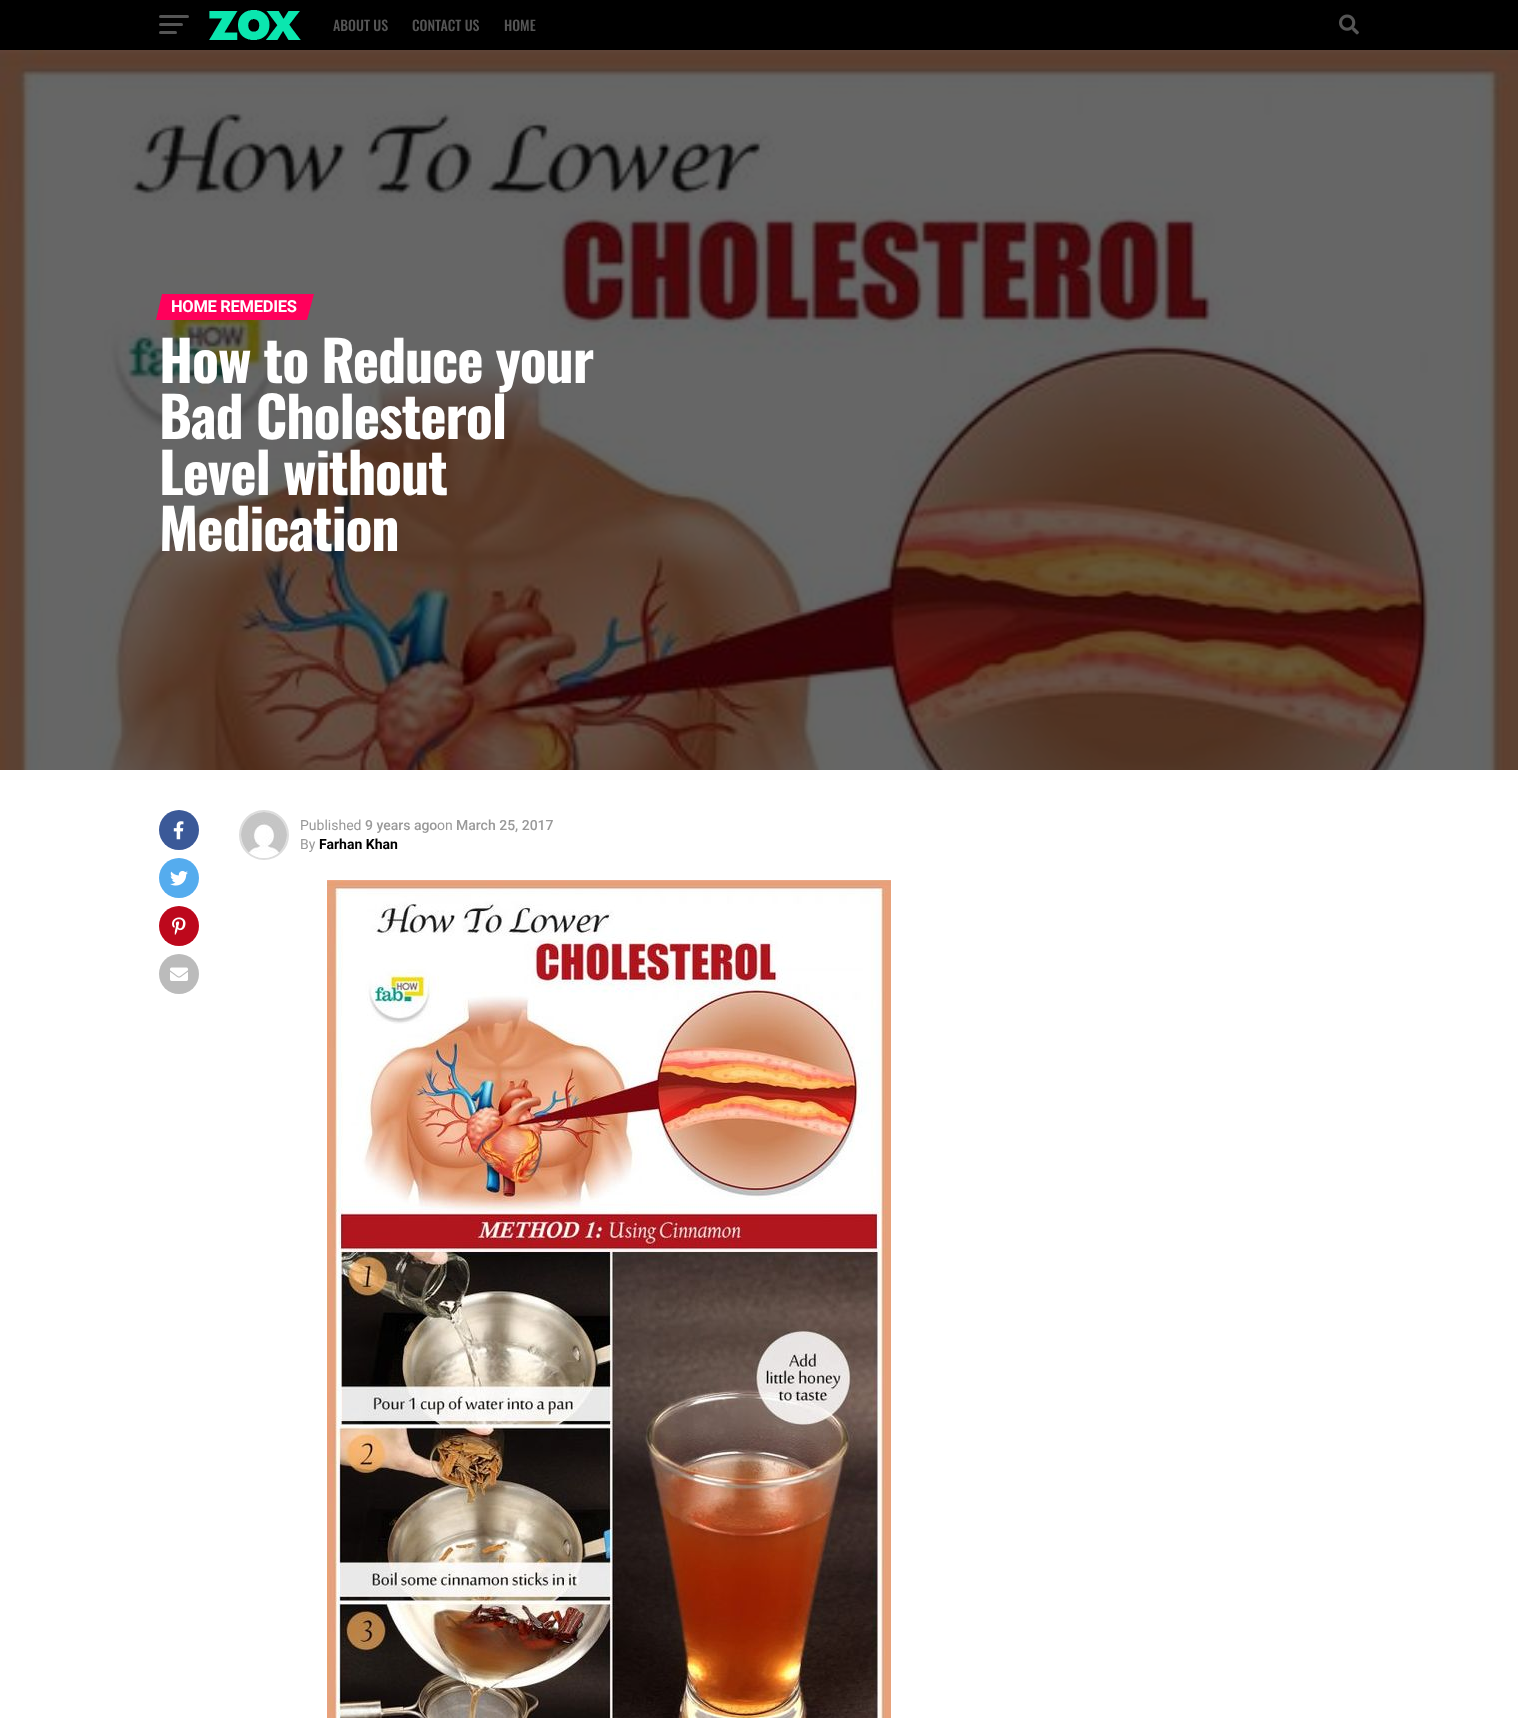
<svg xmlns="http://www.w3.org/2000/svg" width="1518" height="1718">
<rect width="100%" height="100%" fill="#fff"/>
<rect width="1518" height="770" fill="#000"/>
<rect x="159" y="15" width="30" height="3" rx="1.5" fill="#555"/>
<rect x="159" y="23" width="24" height="3" rx="1.5" fill="#555"/>
<rect x="159" y="31" width="18" height="3" rx="1.5" fill="#555"/>
<image x="209" y="10" width="92" height="30" href="media/1.png"/>
<text x="333" y="31" style="font-family:Oswald;font-size:14px;font-weight:500;fill:#555">ABOUT US</text>
<text x="412" y="31" style="font-family:Oswald;font-size:14px;font-weight:500;fill:#555">CONTACT US</text>
<text x="504" y="31" style="font-family:Oswald;font-size:14px;font-weight:500;fill:#555">HOME</text>
<image x="1339" y="14" width="20" height="21" href="media/2.png"/>
<image x="0" y="50" width="1518" height="720" href="media/3.png"/>
<path d="M162 294h152l-7 26h-151z" fill="#ff005b"/>
<text x="171" y="312" style="font-family:Roboto;font-size:16.5px;font-weight:bold;letter-spacing:-0.3px;fill:#fff">HOME REMEDIES</text>
<text x="159" y="383" style="font-family:Oswald;font-size:56px;font-weight:bold;letter-spacing:-1.1px;fill:#fff">How to Reduce your</text>
<text x="159" y="439" style="font-family:Oswald;font-size:56px;font-weight:bold;letter-spacing:-1.1px;fill:#fff">Bad Cholesterol</text>
<text x="159" y="495" style="font-family:Oswald;font-size:56px;font-weight:bold;letter-spacing:-1.1px;fill:#fff">Level without</text>
<text x="159" y="551" style="font-family:Oswald;font-size:56px;font-weight:bold;letter-spacing:-1.1px;fill:#fff">Medication</text>
<circle cx="179" cy="830" r="20" fill="#3b5998"/>
<image x="173" y="821" width="11" height="19" href="media/4.png"/>
<circle cx="179" cy="878" r="20" fill="#55acee"/>
<image x="170" y="870" width="18" height="16" href="media/5.png"/>
<circle cx="179" cy="926" r="20" fill="#bd081c"/>
<image x="172" y="917" width="14" height="18" href="media/6.png"/>
<circle cx="179" cy="974" r="20" fill="#bbb"/>
<image x="170" y="967" width="18" height="14" href="media/7.png"/>
<circle cx="264" cy="835" r="24" fill="none" stroke="#ddd" stroke-width="2"/>
<image x="241" y="812" width="46" height="46" href="media/8.png"/>
<text x="300" y="830" style="font-family:Roboto;font-size:14px;fill:#999">Published</text>
<text x="365" y="830" style="font-family:Roboto;font-size:14px;font-weight:500;fill:#999">9 years ago</text>
<text x="437" y="830" style="font-family:Roboto;font-size:14px;fill:#999">on</text>
<text x="456" y="830" style="font-family:Roboto;font-size:14px;font-weight:500;fill:#999">March 25, 2017</text>
<text x="300" y="849" style="font-family:Roboto;font-size:14px;fill:#999">By</text>
<text x="319" y="849" style="font-family:Roboto;font-size:14px;font-weight:bold;fill:#000">Farhan Khan</text>
<image x="327" y="880" width="564" height="838" href="media/9.png"/>
</svg>
